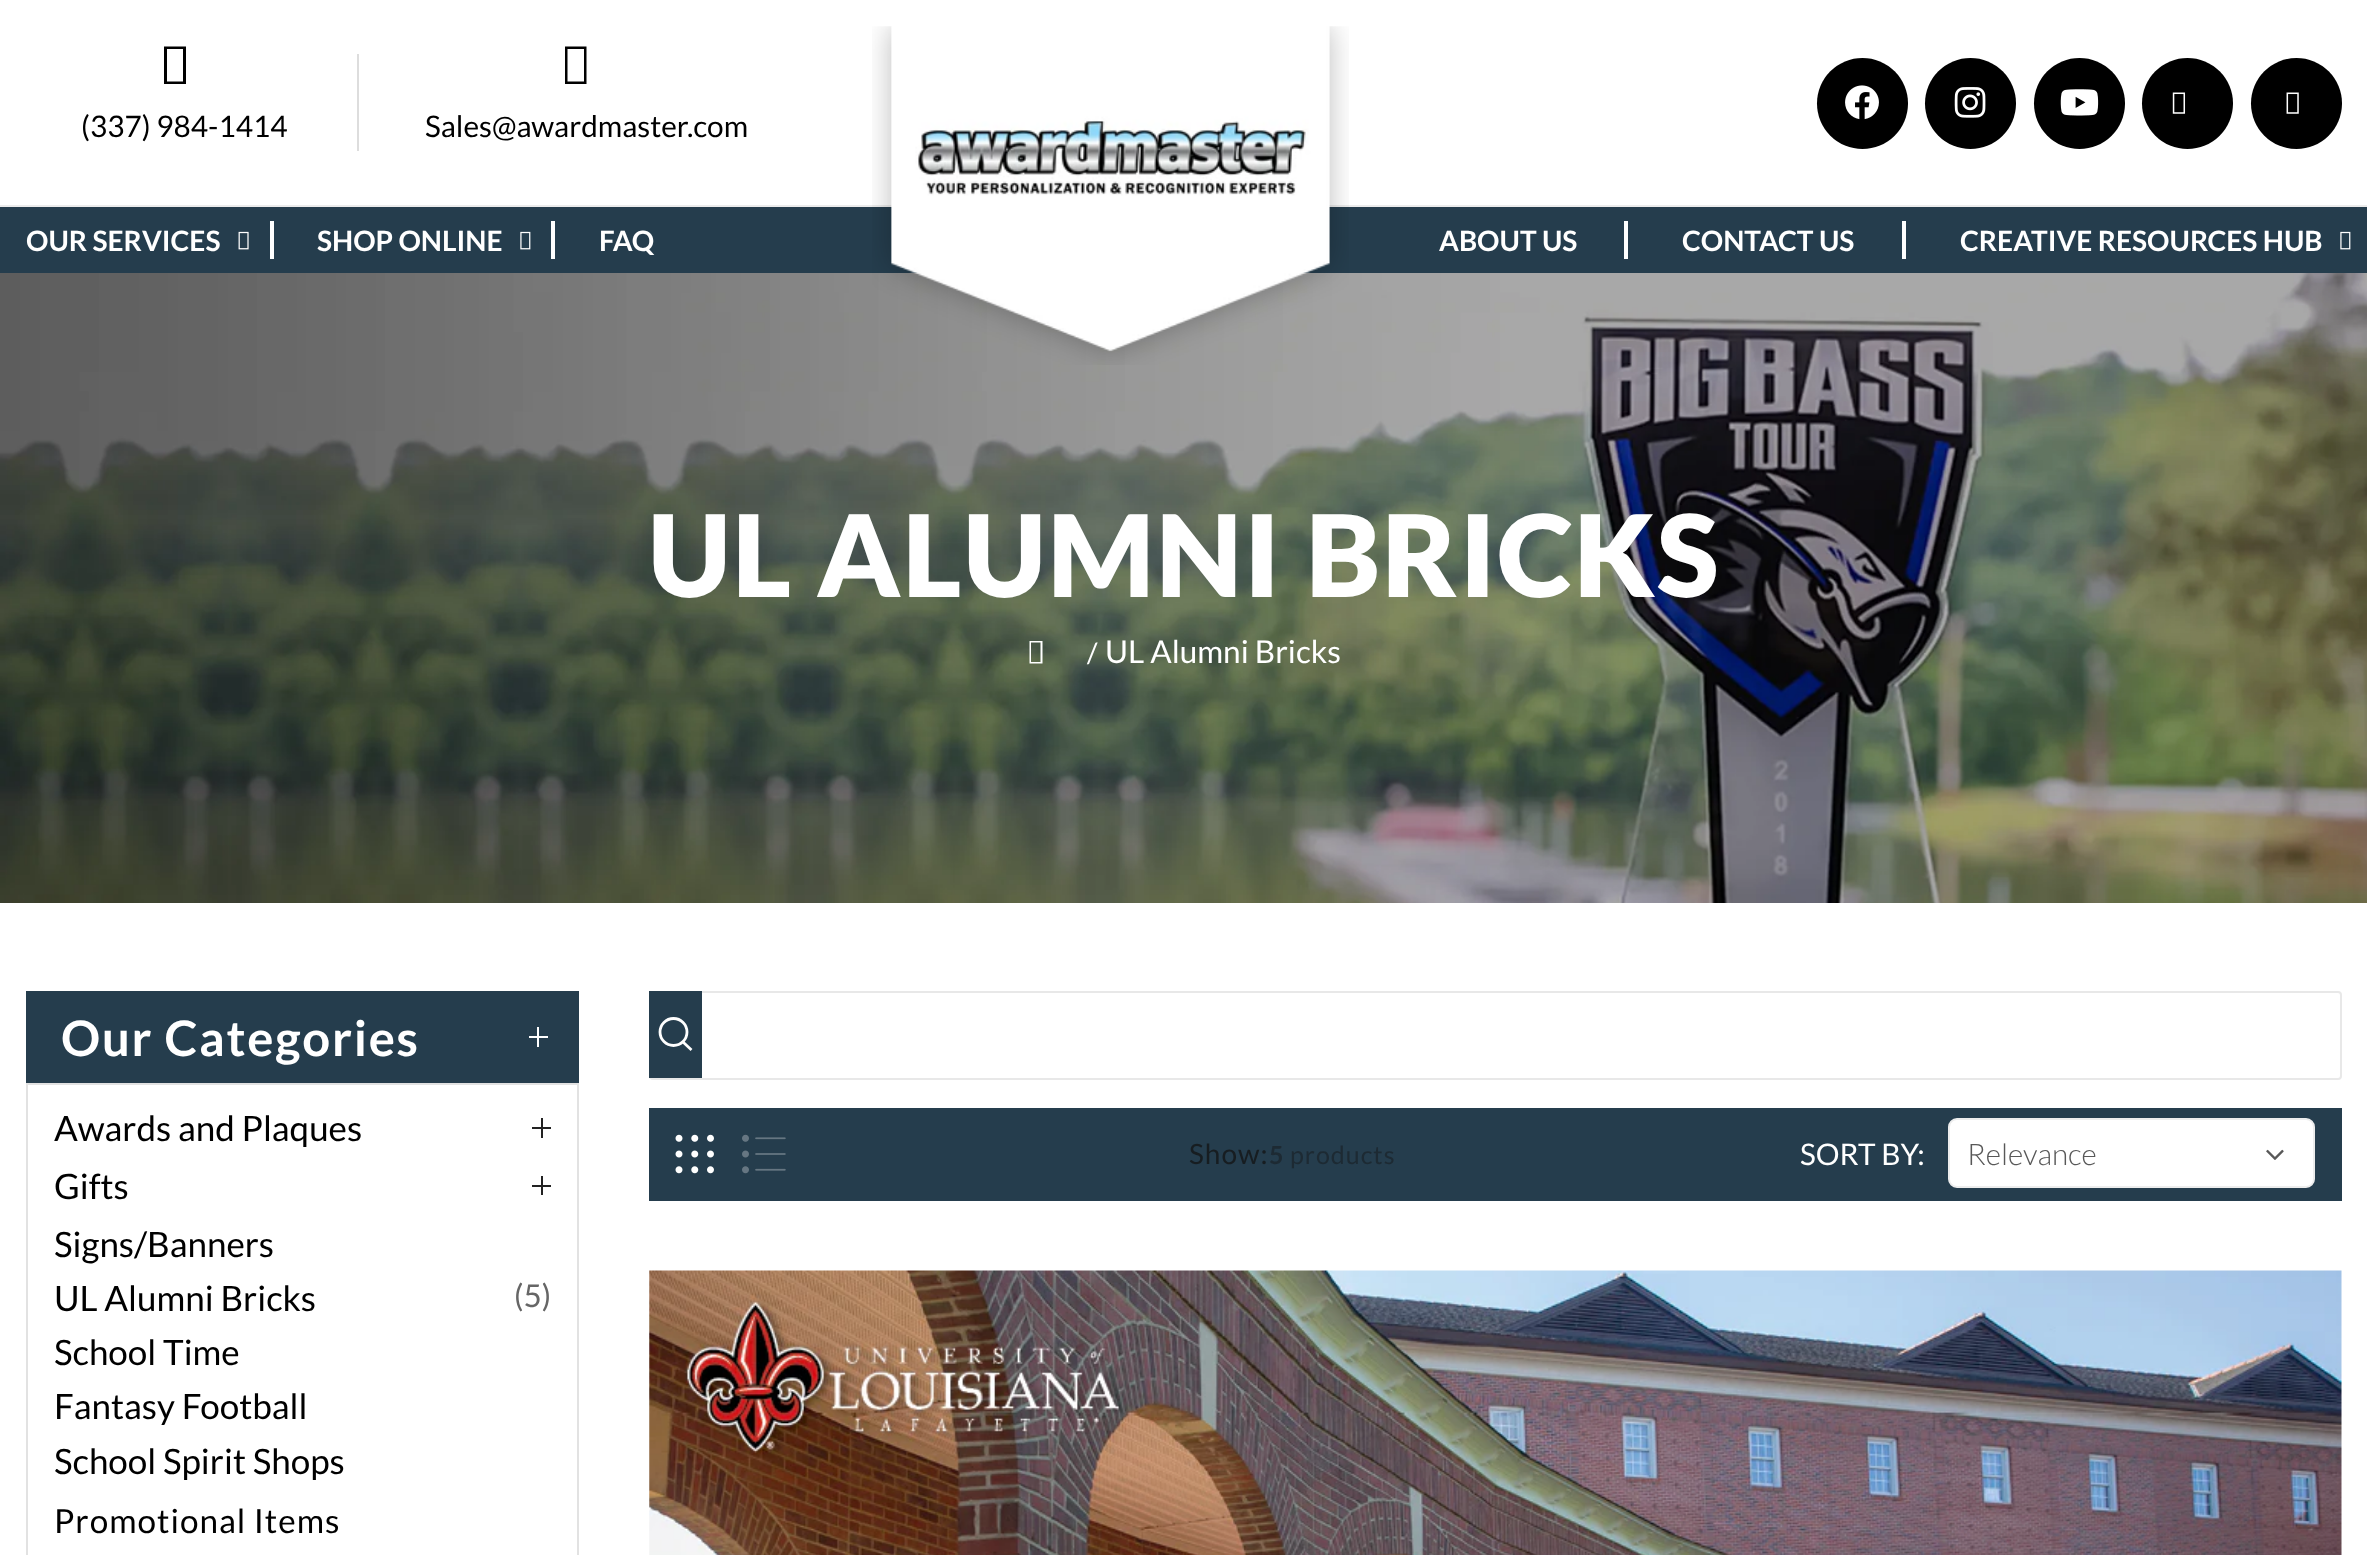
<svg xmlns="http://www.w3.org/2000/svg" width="2367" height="1555">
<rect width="100%" height="100%" fill="#fff"/>
<path d="M164 84v-37.5h22v37.5zm3-2.5h16v-32.5h-16z" fill="#000"/>
<rect x="357" y="54" width="2" height="97" fill="#ddd"/>
<text x="81" y="137" style="font-family:Lato;font-size:29.75px;fill:#000">(337) 984-1414</text>
<path d="M565 84v-37.5h21.5v37.5zm2.5-2.5h16.5v-32.5h-16.5z" fill="#000"/>
<text x="425" y="137" style="font-family:Lato;font-size:29.75px;fill:#000">Sales@awardmaster.com</text>
<rect y="205" width="2367" height="2" fill="#ececec"/>
<rect y="207" width="2367" height="66" fill="#253d4d"/>
<image x="0" y="273" width="2367" height="630" href="media/9.png"/>
<image x="872" y="26" width="477" height="339" href="media/1.png"/>
<circle cx="1862.5" cy="103.5" r="45.5" fill="#000"/>
<image x="1845" y="85" width="34" height="35" href="media/2.png"/>
<circle cx="1970.5" cy="103.5" r="45.5" fill="#000"/>
<image x="1954" y="87" width="32" height="31" href="media/3.png"/>
<circle cx="2079.5" cy="103.5" r="45.5" fill="#000"/>
<image x="2060" y="89" width="39" height="27" href="media/4.png"/>
<circle cx="2187.5" cy="103.5" r="45.5" fill="#000"/>
<image x="2172" y="92" width="14" height="22" href="media/5.png"/>
<circle cx="2296.5" cy="103.5" r="45.5" fill="#000"/>
<image x="2286" y="92" width="13" height="22" href="media/6.png"/>
<text x="26" y="251" style="font-family:Lato;font-size:28px;font-weight:bold;fill:#fff">OUR SERVICES</text>
<image x="238" y="231" width="11" height="19" href="media/7.png"/>
<rect x="270" y="221" width="4" height="38" fill="#fff"/>
<text x="317" y="251" style="font-family:Lato;font-size:28px;font-weight:bold;fill:#fff">SHOP ONLINE</text>
<image x="520" y="231" width="11" height="19" href="media/8.png"/>
<rect x="551" y="221" width="4" height="38" fill="#fff"/>
<text x="599" y="251" style="font-family:Lato;font-size:28px;font-weight:bold;fill:#fff">FAQ</text>
<text x="1439" y="251" style="font-family:Lato;font-size:28px;font-weight:bold;fill:#fff">ABOUT US</text>
<rect x="1624" y="221" width="4" height="38" fill="#fff"/>
<text x="1682" y="251" style="font-family:Lato;font-size:28px;font-weight:bold;fill:#fff">CONTACT US</text>
<rect x="1902" y="221" width="4" height="38" fill="#fff"/>
<text x="1960" y="251" style="font-family:Lato;font-size:28px;font-weight:bold;fill:#fff">CREATIVE RESOURCES HUB</text>
<image x="2340" y="231" width="11" height="19" href="media/8.png"/>
<text x="648" y="597" style="font-family:Lato;font-size:113.75px;font-weight:900;letter-spacing:1.75px;fill:#fff">UL ALUMNI BRICKS</text>
<path d="M1029.5 663.5v-22.5h13v22.5zm1.5-1.5h9.5v-19.5h-9.5z" fill="#fff"/>
<text x="1087" y="663" style="font-family:Lato;font-size:28px;letter-spacing:1px;fill:#fff">/</text>
<text x="1105" y="663" style="font-family:Lato;font-size:31.5px;fill:#fff">UL Alumni Bricks</text>
<rect x="26" y="991" width="553" height="92" fill="#253d4d"/>
<text x="61" y="1056" style="font-family:Lato;font-size:49px;font-weight:bold;letter-spacing:1.75px;fill:#fff">Our Categories</text>
<rect x="537" y="1027" width="2" height="20" fill="#fff"/>
<rect x="529" y="1036" width="19" height="2" fill="#fff"/>
<rect x="27" y="1084" width="551" height="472" fill="none" stroke="#e2e2e2" stroke-width="2"/>
<text x="54" y="1141" style="font-family:Lato;font-size:35px;fill:#000">Awards and Plaques</text>
<rect x="541" y="1118" width="2" height="20" fill="#222"/>
<rect x="532" y="1127" width="19" height="2" fill="#222"/>
<text x="54" y="1199" style="font-family:Lato;font-size:35px;fill:#000">Gifts</text>
<rect x="541" y="1176" width="2" height="19" fill="#222"/>
<rect x="532" y="1185" width="19" height="2" fill="#222"/>
<text x="54" y="1257" style="font-family:Lato;font-size:35px;fill:#000">Signs/Banners</text>
<text x="54" y="1311" style="font-family:Lato;font-size:35px;fill:#000">UL Alumni Bricks</text>
<text x="514" y="1307" style="font-family:Lato;font-size:31.5px;fill:#666">(5)</text>
<text x="54" y="1365" style="font-family:Lato;font-size:35px;fill:#000">School Time</text>
<text x="54" y="1419" style="font-family:Lato;font-size:35px;fill:#000">Fantasy Football</text>
<text x="54" y="1474" style="font-family:Lato;font-size:35px;fill:#000">School Spirit Shops</text>
<text x="54" y="1533" style="font-family:Lato;font-size:33.25px;letter-spacing:1px;fill:#000">Promotional Items</text>
<rect x="650" y="992" width="1691" height="87" rx="3" fill="none" stroke="#e8e8e8" stroke-width="2"/>
<rect x="649" y="991" width="53" height="87" fill="#253d4d"/>
<circle cx="673.5" cy="1032" r="13.5" fill="none" stroke="#fff" stroke-width="2.8"/>
<path d="M691.5 1050l-8.5-8" fill="none" stroke="#fff" stroke-width="2.8"/>
<rect x="649" y="1108" width="1693" height="93" fill="#253d4d"/>
<image x="675" y="1134" width="39" height="40" href="media/10.png"/>
<image x="742" y="1134" width="44" height="40" href="media/11.png"/>
<text x="1189" y="1164" style="font-family:Lato;font-size:28px;letter-spacing:1px;fill:#171d21">Show:</text>
<text x="1269" y="1164" style="font-family:Lato;font-size:25px;font-weight:bold;letter-spacing:1px;fill:#1d2a33">5</text>
<text x="1290" y="1164" style="font-family:Lato;font-size:25px;letter-spacing:1px;fill:#1d2a33">products</text>
<text x="1800" y="1165" style="font-family:Lato;font-size:29.75px;fill:#fff">SORT BY:</text>
<rect x="1949" y="1119" width="365" height="68" rx="8" fill="#fff" stroke="#ededed" stroke-width="2"/>
<text x="1967" y="1165" style="font-family:Lato;font-size:29.75px;font-weight:300;fill:#585858">Relevance</text>
<image x="2266" y="1149" width="18" height="11" href="media/12.png"/>
<image x="649" y="1270" width="1693" height="285" href="media/13.png"/>
</svg>
